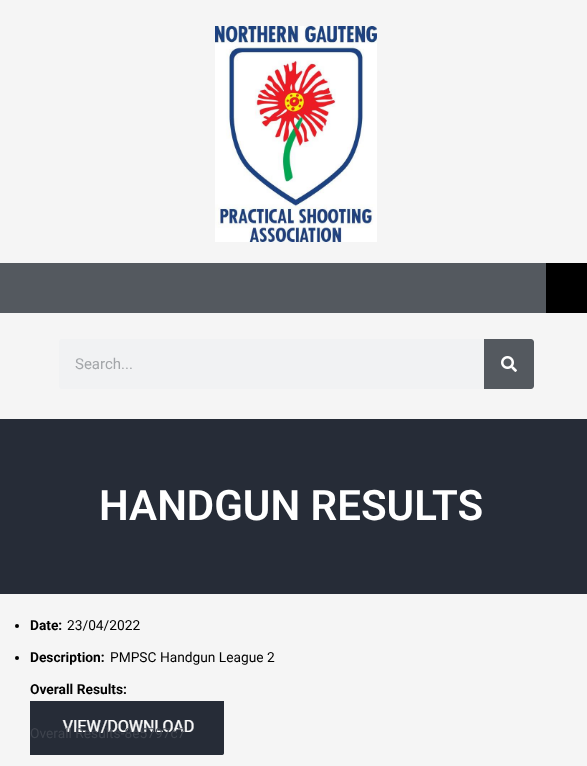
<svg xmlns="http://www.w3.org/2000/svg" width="587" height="766">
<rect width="100%" height="100%" fill="#f5f5f5"/>
<image x="215" y="26" width="162" height="216" href="media/1.png"/>
<rect y="263" width="546" height="50" fill="#54595f"/>
<rect x="546" y="263" width="41" height="50" fill="#000"/>
<rect x="59" y="339" width="475" height="50" rx="3" fill="#f1f2f3"/>
<text x="75" y="369" style="font-family:Roboto;font-size:15px;fill:#a3a6a9">Search...</text>
<path d="M484 339h47c1.5 0 3 1.5 3 3v44c0 1.5-1.5 3-3 3h-47z" fill="#54595f"/>
<image x="501" y="356" width="16" height="16" href="media/2.png"/>
<rect y="419" width="587" height="175" fill="#262c37"/>
<text x="99" y="520" style="font-family:Roboto;font-size:42px;font-weight:600;fill:#fff">HANDGUN RESULTS</text>
<circle cx="17" cy="626" r="2" fill="#000"/>
<text x="30" y="630" style="font-family:Roboto;font-size:13.75px;font-weight:bold;fill:#000">Date:</text>
<text x="67" y="630" style="font-family:Roboto;font-size:13.75px;fill:#000">23/04/2022</text>
<circle cx="17" cy="658" r="2" fill="#000"/>
<text x="30" y="662" style="font-family:Roboto;font-size:13.75px;font-weight:bold;fill:#000">Description:</text>
<text x="110" y="662" style="font-family:Roboto;font-size:13.75px;fill:#000">PMPSC Handgun League 2</text>
<text x="30" y="694" style="font-family:Roboto;font-size:13.75px;font-weight:bold;fill:#000">Overall Results:</text>
<image x="30" y="701" width="194" height="54" href="media/3.png"/>
<text x="30" y="738" style="font-family:Roboto;font-size:13.75px;fill:#3f444e">Overall Results-8e5797c7</text>
</svg>
